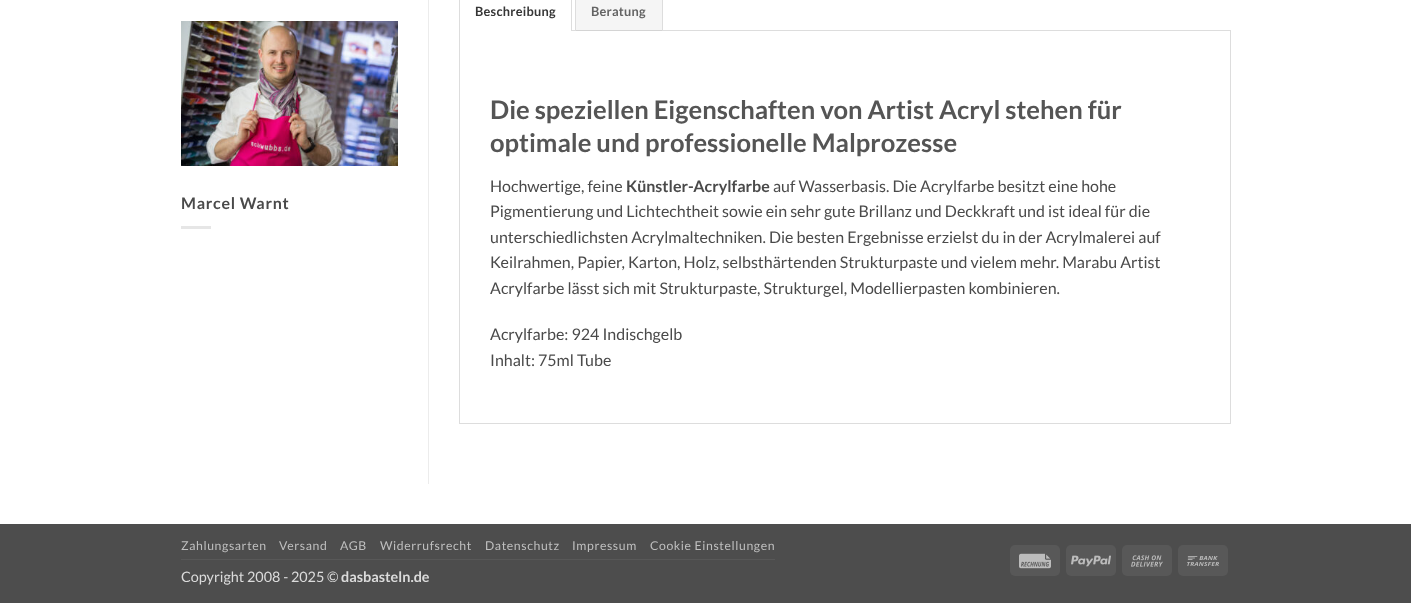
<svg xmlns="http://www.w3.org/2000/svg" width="1411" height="603">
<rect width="100%" height="100%" fill="#fff"/>
<image x="181" y="21" width="217" height="145" href="media/1.png"/>
<text x="181" y="209" style="font-family:Lato;font-size:16px;font-weight:bold;letter-spacing:0.75px;fill:#4a4a4a">Marcel Warnt</text>
<rect x="181" y="226" width="30" height="3" fill="#e6e6e6"/>
<rect x="428" width="1" height="484" fill="#ececec"/>
<rect x="459.5" y="30.5" width="771" height="393" fill="none" stroke="#ddd"/>
<rect x="460" y="30" width="111" height="1" fill="#fff"/>
<path d="M572-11v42h-1v-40z" fill="#ddd"/>
<path d="M459 31v-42l1 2v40z" fill="#ddd"/>
<text x="475" y="16" style="font-family:Lato;font-size:12.75px;font-weight:bold;letter-spacing:0.25px;fill:#363636">Beschreibung</text>
<rect x="576" width="86" height="31" fill="#0000000a"/>
<rect x="662" width="1" height="31" fill="#ddd"/>
<rect x="575" width="1" height="31" fill="#ddd"/>
<text x="591" y="16" style="font-family:Lato;font-size:12.75px;font-weight:bold;letter-spacing:0.25px;fill:#646464">Beratung</text>
<text x="490" y="119" style="font-family:Lato;font-size:25.6px;font-weight:bold;fill:#555">Die speziellen Eigenschaften von Artist Acryl stehen für</text>
<text x="490" y="152" style="font-family:Lato;font-size:25.6px;font-weight:bold;fill:#555">optimale und professionelle Malprozesse</text>
<text x="490" y="192" style="font-family:Lato;font-size:16px;fill:#4a4a4a">Hochwertige, feine</text>
<text x="626" y="192" style="font-family:Lato;font-size:16px;font-weight:bold;fill:#4a4a4a">Künstler-Acrylfarbe</text>
<text x="773" y="192" style="font-family:Lato;font-size:16px;fill:#4a4a4a">auf Wasserbasis. Die Acrylfarbe besitzt eine hohe</text>
<text x="490" y="217" style="font-family:Lato;font-size:16px;fill:#4a4a4a">Pigmentierung und Lichtechtheit sowie ein sehr gute Brillanz und Deckkraft und ist ideal für die</text>
<text x="490" y="243" style="font-family:Lato;font-size:16px;fill:#4a4a4a">unterschiedlichsten Acrylmaltechniken. Die besten Ergebnisse erzielst du in der Acrylmalerei auf</text>
<text x="490" y="268" style="font-family:Lato;font-size:16px;fill:#4a4a4a">Keilrahmen, Papier, Karton, Holz, selbsthärtenden Strukturpaste und vielem mehr. Marabu Artist</text>
<text x="490" y="294" style="font-family:Lato;font-size:16px;fill:#4a4a4a">Acrylfarbe lässt sich mit Strukturpaste, Strukturgel, Modellierpasten kombinieren.</text>
<text x="490" y="340" style="font-family:Lato;font-size:16px;fill:#4a4a4a">Acrylfarbe: 924 Indischgelb</text>
<text x="490" y="366" style="font-family:Lato;font-size:16px;fill:#4a4a4a">Inhalt: 75ml Tube</text>
<rect y="524" width="1411" height="79" fill="#4d4d4d"/>
<rect x="181" y="559" width="594" height="1" fill="#585858"/>
<text x="181" y="550" style="font-family:Lato;font-size:12.25px;letter-spacing:0.6px;fill:#bfbfbf">Zahlungsarten</text>
<text x="279" y="550" style="font-family:Lato;font-size:12.25px;letter-spacing:0.6px;fill:#bfbfbf">Versand</text>
<text x="340" y="550" style="font-family:Lato;font-size:12.25px;letter-spacing:0.6px;fill:#bfbfbf">AGB</text>
<text x="380" y="550" style="font-family:Lato;font-size:12.25px;letter-spacing:0.6px;fill:#bfbfbf">Widerrufsrecht</text>
<text x="485" y="550" style="font-family:Lato;font-size:12.25px;letter-spacing:0.6px;fill:#bfbfbf">Datenschutz</text>
<text x="572" y="550" style="font-family:Lato;font-size:12.25px;letter-spacing:0.6px;fill:#bfbfbf">Impressum</text>
<text x="650" y="550" style="font-family:Lato;font-size:12.25px;letter-spacing:0.6px;fill:#bfbfbf">Cookie Einstellungen</text>
<text x="181" y="582" style="font-family:Lato;font-size:14.4px;fill:#dbdbdb">Copyright 2008 - 2025 ©</text>
<text x="341" y="582" style="font-family:Lato;font-size:14.4px;font-weight:bold;fill:#dbdbdb">dasbasteln.de</text>
<rect x="1010" y="545" width="50" height="31" rx="5" fill="#585858"/>
<image x="1019" y="553" width="32" height="16" href="media/2.png"/>
<rect x="1066" y="545" width="50" height="31" rx="5" fill="#585858"/>
<image x="1071" y="555" width="40" height="12" href="media/3.png"/>
<rect x="1122" y="545" width="50" height="31" rx="5" fill="#585858"/>
<image x="1131" y="555" width="32" height="12" href="media/4.png"/>
<rect x="1178" y="545" width="50" height="31" rx="5" fill="#585858"/>
<image x="1187" y="556" width="32" height="10" href="media/5.png"/>
</svg>
